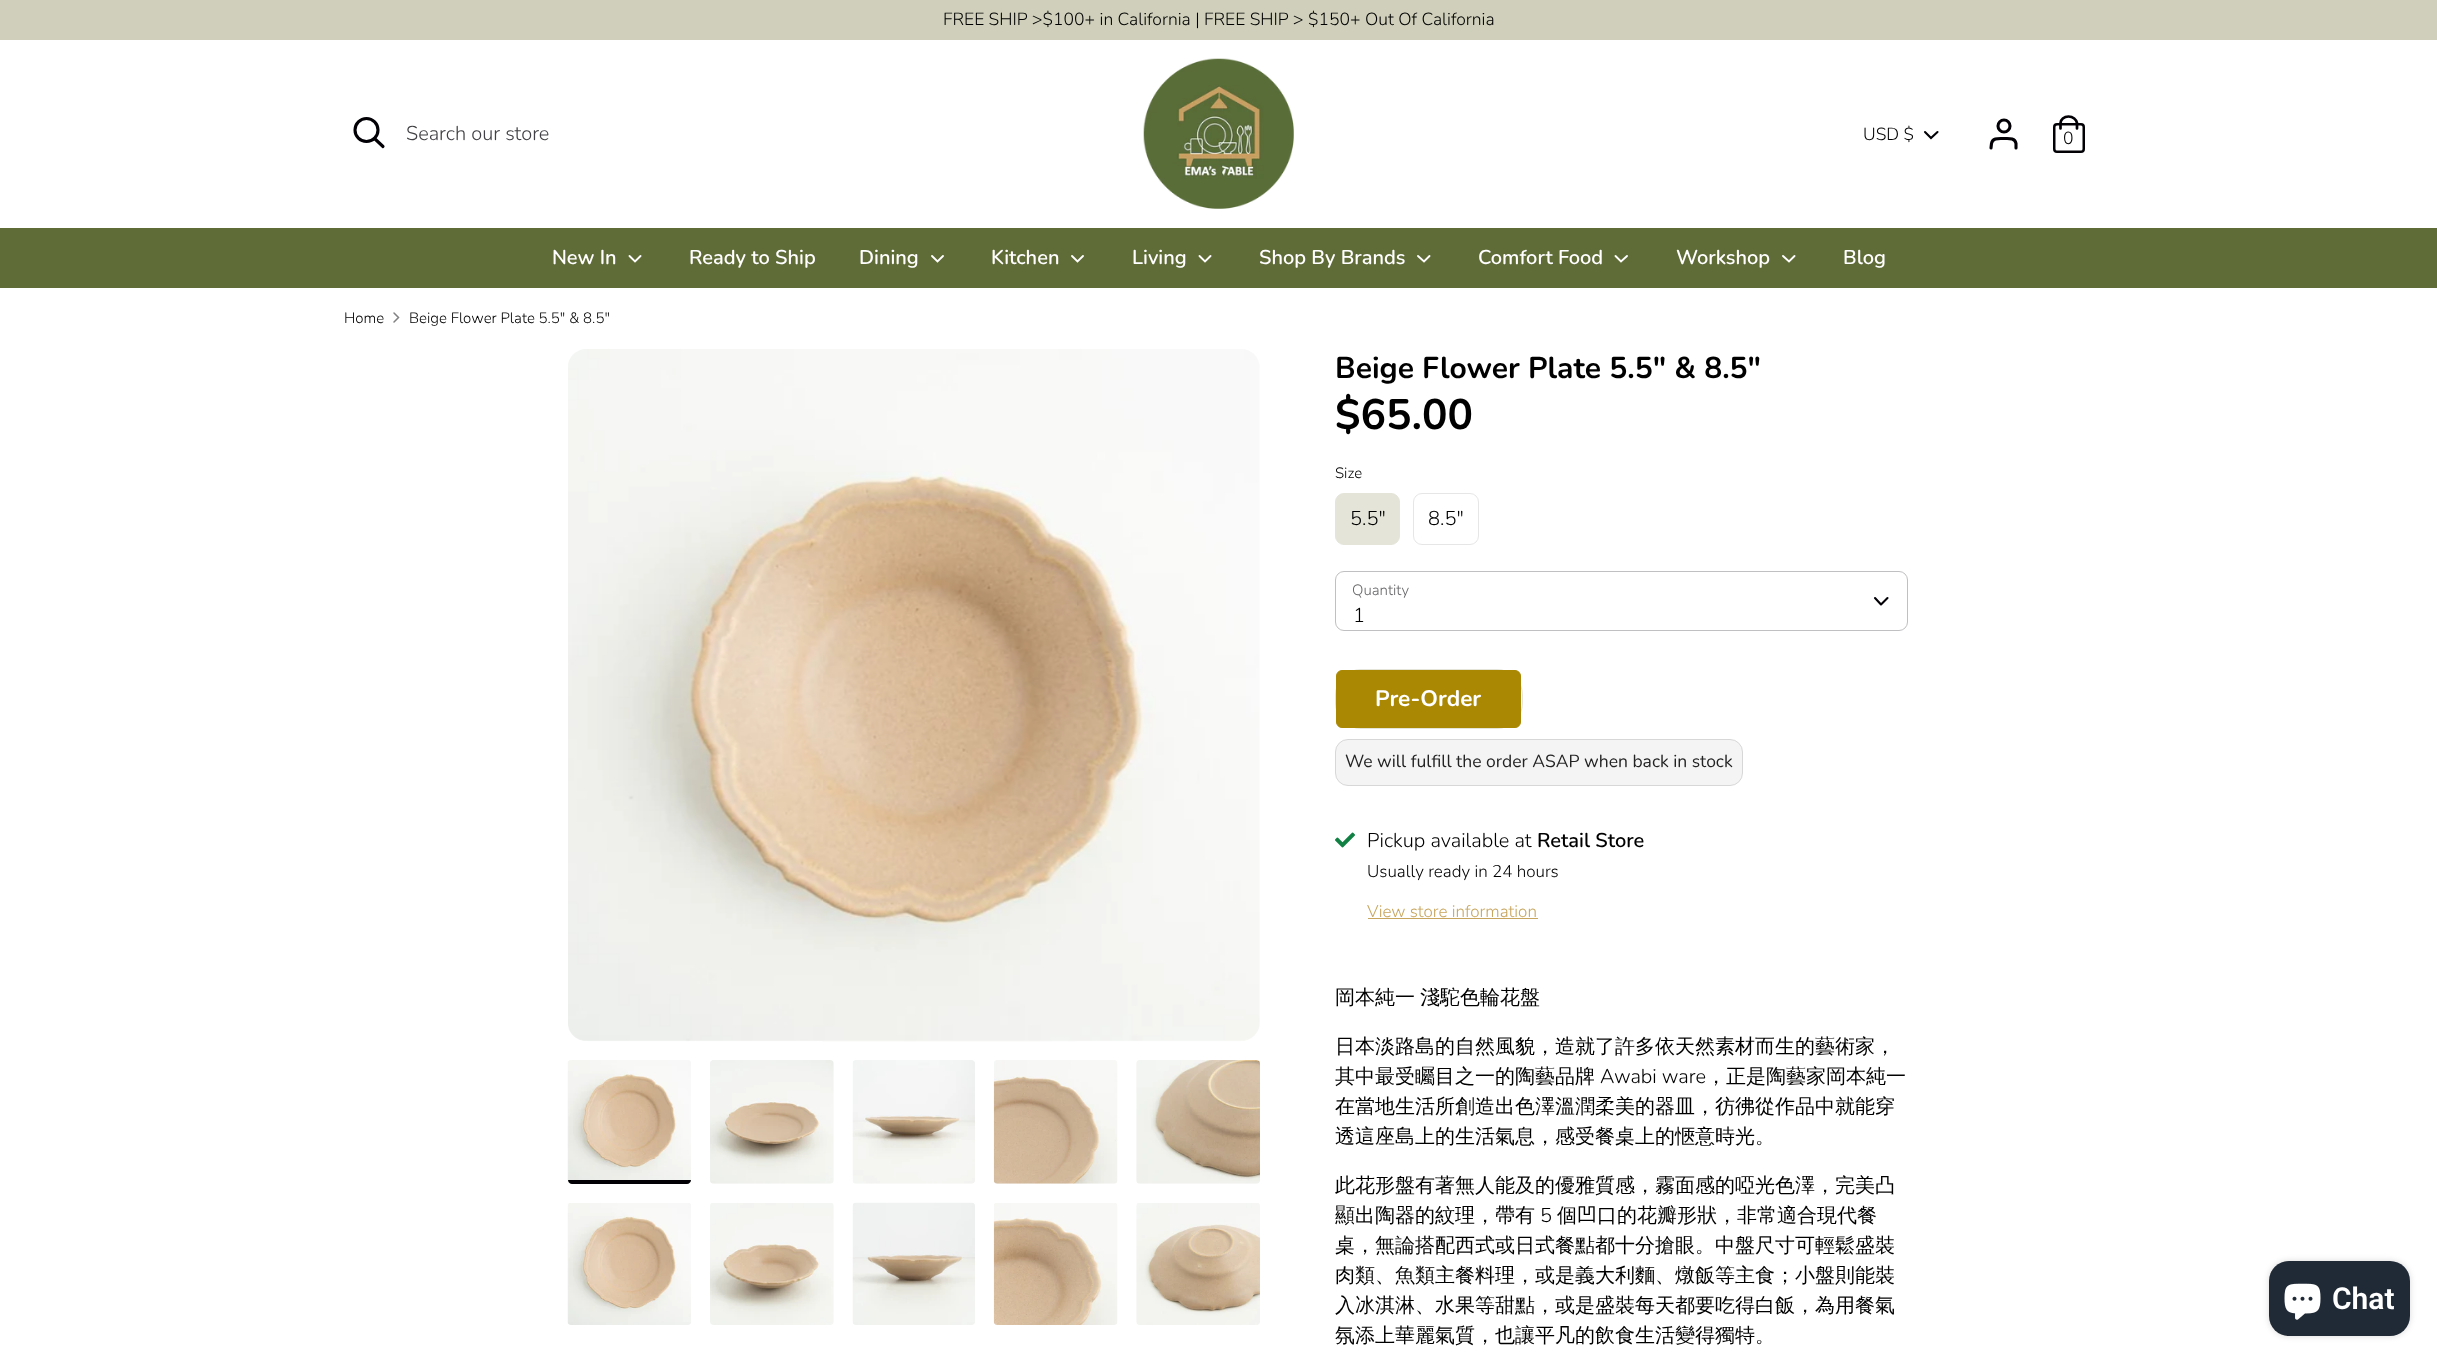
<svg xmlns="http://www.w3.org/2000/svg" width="2437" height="1362">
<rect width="100%" height="100%" fill="#fff"/>
<rect width="2437" height="40" fill="#cfcfbb"/>
<text x="943" y="25" style="font-family:Nunito;font-size:17.5px;font-weight:300;fill:#000">FREE SHIP &gt;$100+ in California | FREE SHIP &gt; $150+ Out Of California</text>
<circle cx="366.5" cy="130" r="11.5" fill="none" stroke="#020005" stroke-width="3.1"/>
<path d="M383 146.5l-8.5-8" fill="none" stroke="#020005" stroke-width="3.1" stroke-linecap="round"/>
<text x="406" y="140" style="font-family:Nunito;font-size:20px;font-weight:300;fill:#414044">Search our store</text>
<image x="1143" y="58" width="151" height="151" href="media/1.png"/>
<text x="1863" y="140" style="font-family:Nunito;font-size:17.5px;font-weight:300;fill:#000">USD $</text>
<path d="M1925 132l6 6l6.5-6" fill="none" stroke="#020005" stroke-width="2.1" stroke-linecap="round"/>
<path d="M2016 148v-4.5c-1-6-7.5-5-12-5c-5 0-11.5-1-12.5 5l-.5 4.5" fill="none" stroke="#020005" stroke-width="3.1" stroke-linecap="round"/>
<circle cx="2004" cy="126" r="6" fill="none" stroke="#020005" stroke-width="3.1"/>
<rect x="2054.25" y="124.25" width="29.5" height="27.5" rx="2.75" fill="none" stroke="#020005" stroke-width="2.5"/>
<path d="M2060.5 128.5v-5.5c0-3.5 3.5-6.5 8-6.5c4.5 0 8 3 8.5 6.5v5.5" fill="none" stroke="#020005" stroke-width="2.7" stroke-linecap="round"/>
<text x="2063" y="144" style="font-family:Nunito;font-size:17.5px;font-weight:300;fill:#000">0</text>
<rect y="228" width="2437" height="60" fill="#5f6c38"/>
<text x="552" y="264" style="font-family:Nunito;font-size:20px;font-weight:600;fill:#fff">New In</text>
<path d="M629.5 256l5.5 5.5l5.5-5.5" fill="none" stroke="#fff" stroke-width="1.9" stroke-linecap="round"/>
<text x="689" y="264" style="font-family:Nunito;font-size:20px;font-weight:600;fill:#fff">Ready to Ship</text>
<text x="859" y="264" style="font-family:Nunito;font-size:20px;font-weight:600;fill:#fff">Dining</text>
<path d="M932 256l5.5 5.5l5.5-5.5" fill="none" stroke="#fff" stroke-width="1.9" stroke-linecap="round"/>
<text x="991" y="264" style="font-family:Nunito;font-size:20px;font-weight:600;fill:#fff">Kitchen</text>
<path d="M1072 256l5.5 5.5l5.5-5.5" fill="none" stroke="#fff" stroke-width="1.9" stroke-linecap="round"/>
<text x="1132" y="264" style="font-family:Nunito;font-size:20px;font-weight:600;fill:#fff">Living</text>
<path d="M1199.5 256l5.5 5.5l5.5-5.5" fill="none" stroke="#fff" stroke-width="1.9" stroke-linecap="round"/>
<text x="1259" y="264" style="font-family:Nunito;font-size:20px;font-weight:600;fill:#fff">Shop By Brands</text>
<path d="M1418 256l6 5.5l5.5-5.5" fill="none" stroke="#fff" stroke-width="1.9" stroke-linecap="round"/>
<text x="1478" y="264" style="font-family:Nunito;font-size:20px;font-weight:600;fill:#fff">Comfort Food</text>
<path d="M1615.5 256l5.5 5.5l6-5.5" fill="none" stroke="#fff" stroke-width="1.9" stroke-linecap="round"/>
<text x="1676" y="264" style="font-family:Nunito;font-size:20px;font-weight:600;fill:#fff">Workshop</text>
<path d="M1783 256l6 5.5l5.5-5.5" fill="none" stroke="#fff" stroke-width="1.9" stroke-linecap="round"/>
<text x="1843" y="264" style="font-family:Nunito;font-size:20px;font-weight:600;fill:#fff">Blog</text>
<text x="344" y="323" style="font-family:Nunito;font-size:15px;font-weight:300;fill:#000">Home</text>
<path d="M394 322l4.5-4.5l-4.5-4.5" fill="none" stroke="#818082" stroke-width="1.5" stroke-linecap="round"/>
<text x="409" y="323" style="font-family:Nunito;font-size:15px;font-weight:300;fill:#000">Beige Flower Plate 5.5" &amp; 8.5"</text>
<image x="568" y="349" width="692" height="693" href="media/2.png"/>
<image x="567" y="1060" width="124" height="124" href="media/3.png"/>
<path d="M568 1180h123c0 2-2 4-4 4h-115c-2 0-4-2-4-4z" fill="#020005"/>
<image x="710" y="1060" width="124" height="124" href="media/4.png"/>
<image x="852" y="1060" width="123" height="124" href="media/5.png"/>
<image x="993" y="1060" width="125" height="124" href="media/6.png"/>
<image x="1136" y="1060" width="124" height="124" href="media/7.png"/>
<image x="567" y="1203" width="124" height="122" href="media/8.png"/>
<image x="710" y="1203" width="124" height="122" href="media/9.png"/>
<image x="852" y="1202" width="123" height="123" href="media/10.png"/>
<image x="993" y="1203" width="125" height="122" href="media/11.png"/>
<image x="1136" y="1203" width="124" height="122" href="media/12.png"/>
<text x="1335" y="378" style="font-family:Nunito;font-size:30px;font-weight:bold;fill:#000">Beige Flower Plate 5.5" &amp; 8.5"</text>
<text x="1335" y="429" style="font-family:Nunito;font-size:42.5px;font-weight:bold;fill:#000">$65.00</text>
<text x="1335" y="478" style="font-family:Nunito;font-size:15px;font-weight:300;fill:#000">Size</text>
<rect x="1335.5" y="493.5" width="64" height="51" rx="8.5" fill="#e4e4d9" stroke="#e4e4d9"/>
<text x="1350" y="525" style="font-family:Nunito;font-size:20px;font-weight:300;fill:#000">5.5"</text>
<rect x="1413.5" y="493.5" width="65" height="51" rx="8.5" fill="none" stroke="#e6e6e6"/>
<text x="1428" y="525" style="font-family:Nunito;font-size:20px;font-weight:300;fill:#000">8.5"</text>
<rect x="1335.5" y="571.5" width="572" height="59" rx="8.5" fill="none" stroke="#c0bfc1"/>
<text x="1352" y="595" style="font-family:Nunito;font-size:15px;font-weight:300;fill:#676669">Quantity</text>
<path d="M1875 598l6 6.5l6.5-6.5" fill="none" stroke="#020005" stroke-width="2.1" stroke-linecap="round" stroke-linejoin="round"/>
<text x="1353" y="622" style="font-family:Nunito;font-size:20px;font-weight:300;fill:#000">1</text>
<rect x="1335.5" y="669.5" width="187" height="59" rx="25.5" fill="none" stroke="#e4e4d9"/>
<rect x="1336.5" y="670.5" width="184" height="57" rx="5.5" fill="#aa8803" stroke="#aa8803"/>
<text x="1375" y="706" style="font-family:Nunito;font-size:22.5px;font-weight:bold;fill:#fff">Pre-Order</text>
<rect x="1335.5" y="739.5" width="407" height="46" rx="12.5" fill="#f4f4f4" stroke="#d7d7d7"/>
<text x="1345" y="767" style="font-family:Nunito;font-size:17.5px;fill:#232323">We will fulfill the order ASAP when back in stock</text>
<image x="1335" y="832" width="20" height="16" href="media/13.png"/>
<text x="1367" y="847" style="font-family:Nunito;font-size:20px;font-weight:300;fill:#000">Pickup available at</text>
<text x="1537" y="847" style="font-family:Nunito;font-size:20px;font-weight:600;fill:#000">Retail Store</text>
<text x="1367" y="877" style="font-family:Nunito;font-size:17px;font-weight:300;fill:#000">Usually ready in 24 hours</text>
<text x="1367" y="917" style="font-family:Nunito;font-size:17px;font-weight:300;fill:#c7a55d">View store information</text>
<rect x="1368" y="918" width="170" height="1" fill="#c7a55d"/>
<text x="1335" y="1004" word-spacing="-1" style="font-family:WenQuanYi Zen Hei;font-size:20px;font-weight:500;fill:#000">岡本純一 淺駝色輪花盤</text>
<text x="1335" y="1053" style="font-family:WenQuanYi Zen Hei;font-size:20px;font-weight:500;fill:#000">日本淡路島的自然風貌，造就了許多依天然素材而生的藝術家，</text>
<text x="1335" y="1083" style="font-family:WenQuanYi Zen Hei;font-size:20px;font-weight:500;fill:#000">其中最受矚目之一的陶藝品牌</text>
<text x="1600" y="1083" style="font-family:Nunito;font-size:20px;font-weight:300;fill:#000">Awabi ware</text>
<text x="1706" y="1083" style="font-family:WenQuanYi Zen Hei;font-size:20px;font-weight:500;fill:#000">，正是陶藝家岡本純一</text>
<text x="1335" y="1113" style="font-family:WenQuanYi Zen Hei;font-size:20px;font-weight:500;fill:#000">在當地生活所創造出色澤溫潤柔美的器皿，彷彿從作品中就能穿</text>
<text x="1335" y="1143" style="font-family:WenQuanYi Zen Hei;font-size:20px;font-weight:500;fill:#000">透這座島上的生活氣息，感受餐桌上的愜意時光。</text>
<text x="1335" y="1192" style="font-family:WenQuanYi Zen Hei;font-size:20px;font-weight:500;fill:#000">此花形盤有著無人能及的優雅質感，霧面感的啞光色澤，完美凸</text>
<text x="1335" y="1222" style="font-family:WenQuanYi Zen Hei;font-size:20px;font-weight:500;fill:#000">顯出陶器的紋理，帶有</text>
<text x="1540" y="1222" style="font-family:Nunito;font-size:20px;font-weight:300;fill:#000">5</text>
<text x="1557" y="1222" style="font-family:WenQuanYi Zen Hei;font-size:20px;font-weight:500;fill:#000">個凹口的花瓣形狀，非常適合現代餐</text>
<text x="1335" y="1252" style="font-family:WenQuanYi Zen Hei;font-size:20px;font-weight:500;fill:#000">桌，無論搭配西式或日式餐點都十分搶眼。中盤尺寸可輕鬆盛裝</text>
<text x="1335" y="1282" style="font-family:WenQuanYi Zen Hei;font-size:20px;font-weight:500;fill:#000">肉類、魚類主餐料理，或是義大利麵、燉飯等主食；小盤則能裝</text>
<text x="1335" y="1312" style="font-family:WenQuanYi Zen Hei;font-size:20px;font-weight:500;fill:#000">入冰淇淋、水果等甜點，或是盛裝每天都要吃得白飯，為用餐氣</text>
<text x="1335" y="1342" style="font-family:WenQuanYi Zen Hei;font-size:20px;font-weight:500;fill:#000">氛添上華麗氣質，也讓平凡的飲食生活變得獨特。</text>
<rect x="2269" y="1261" width="141" height="75" rx="20" fill="#00000026" filter="blur(3px)"/>
<rect x="2269" y="1261" width="141" height="75" rx="20" fill="#202a36"/>
<image x="2284" y="1283" width="37" height="37" href="media/14.png"/>
<text x="2332" y="1309" style="font-family:Roboto;font-size:30px;font-weight:600;fill:#fff">Chat</text>
</svg>
